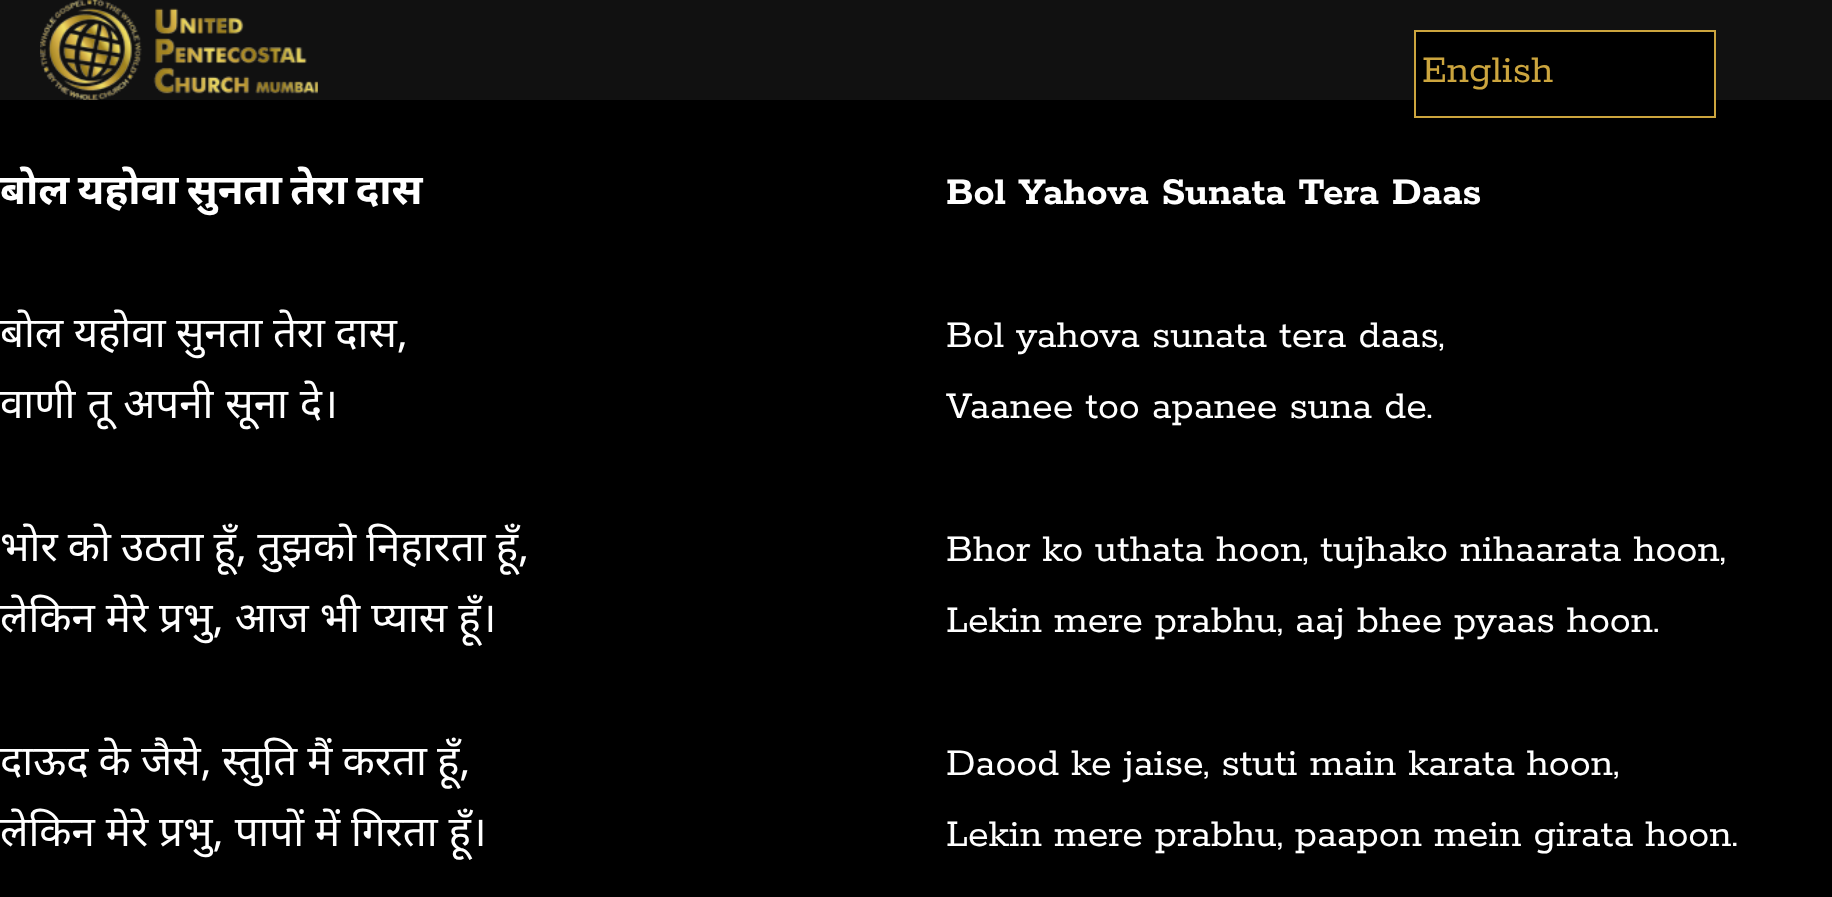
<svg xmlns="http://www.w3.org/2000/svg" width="1832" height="897">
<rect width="100%" height="100%" fill="#000"/>
<rect width="1832" height="100" fill="#111"/>
<image x="40" y="0" width="278" height="100" href="media/1.png"/>
<rect x="1416" y="32" width="298" height="68" fill="#000"/>
<rect x="1415" y="31" width="300" height="86" fill="none" stroke="#cca53e" stroke-width="2"/>
<text x="1422" y="82" style="font-family:Rokkitt;font-size:42px;fill:#cca53e">English</text>
<text x="0" y="204" word-spacing="-2.5" style="font-family:Noto Sans;font-size:42px;font-weight:bold;fill:#fff">बोल यहोवा सुनता तेरा दास</text>
<text x="0" y="347" word-spacing="-0.5" style="font-family:Noto Sans;font-size:42px;fill:#fff">बोल यहोवा सुनता तेरा दास,</text>
<text x="0" y="418" word-spacing="1" style="font-family:Noto Sans;font-size:42px;fill:#fff">वाणी तू अपनी सूना दे।</text>
<text x="0" y="561" word-spacing="-0.75" style="font-family:Noto Sans;font-size:42px;fill:#fff">भोर को उठता हूँ, तुझको निहारता हूँ,</text>
<text x="0" y="632" style="font-family:Noto Sans;font-size:42px;fill:#fff">लेकिन मेरे प्रभु, आज भी प्यास हूँ।</text>
<text x="0" y="775" word-spacing="-0.75" style="font-family:Noto Sans;font-size:42px;fill:#fff">दाऊद के जैसे, स्तुति मैं करता हूँ,</text>
<text x="0" y="846" style="font-family:Noto Sans;font-size:42px;fill:#fff">लेकिन मेरे प्रभु, पापों में गिरता हूँ।</text>
<text x="946" y="204" style="font-family:Rokkitt;font-size:42px;font-weight:bold;fill:#fff">Bol Yahova Sunata Tera Daas</text>
<text x="946" y="347" style="font-family:Rokkitt;font-size:42px;fill:#fff">Bol yahova sunata tera daas,</text>
<text x="946" y="418" style="font-family:Rokkitt;font-size:42px;fill:#fff">Vaanee too apanee suna de.</text>
<text x="946" y="561" style="font-family:Rokkitt;font-size:42px;fill:#fff">Bhor ko uthata hoon, tujhako nihaarata hoon,</text>
<text x="946" y="632" style="font-family:Rokkitt;font-size:42px;fill:#fff">Lekin mere prabhu, aaj bhee pyaas hoon.</text>
<text x="946" y="775" style="font-family:Rokkitt;font-size:42px;fill:#fff">Daood ke jaise, stuti main karata hoon,</text>
<text x="946" y="846" style="font-family:Rokkitt;font-size:42px;fill:#fff">Lekin mere prabhu, paapon mein girata hoon.</text>
</svg>
